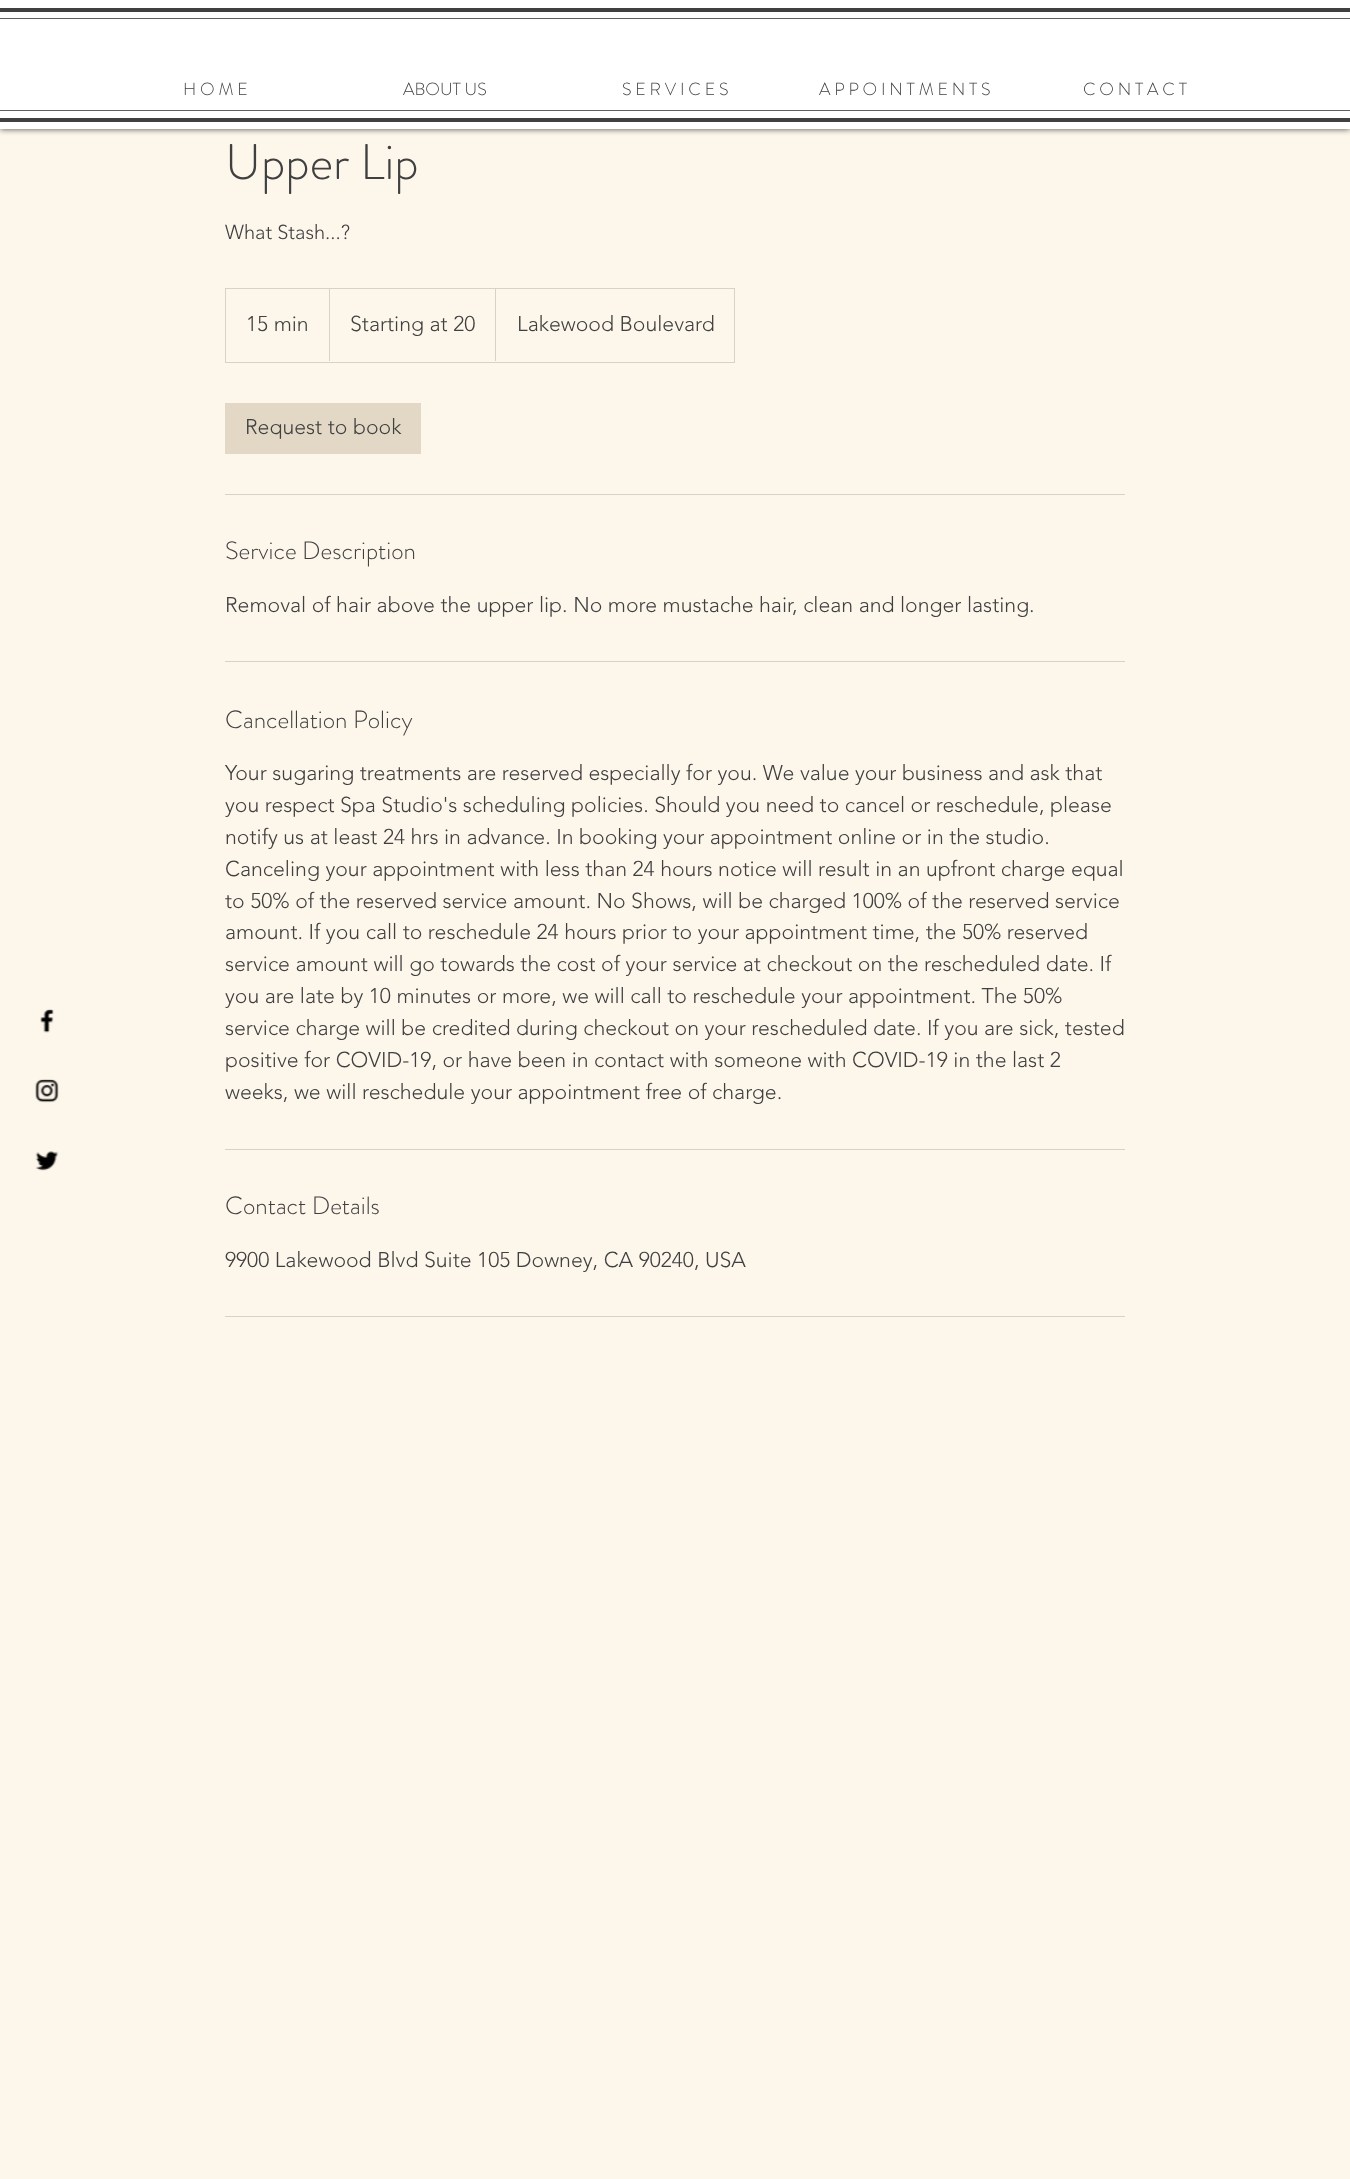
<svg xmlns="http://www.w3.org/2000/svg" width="1350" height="2179">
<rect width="100%" height="100%" fill="#fdf6eb"/>
<rect width="1350" height="129" fill="#000000b3" filter="blur(3px)"/>
<rect width="1350" height="129" fill="#fff"/>
<rect y="8" width="1350" height="4" fill="#404041"/>
<rect y="118" width="1350" height="4" fill="#404041"/>
<rect y="18" width="1350" height="1" fill="#605e5e"/>
<rect y="110" width="1350" height="1" fill="#605e5e"/>
<text x="183" y="95" style="font-family:'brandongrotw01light';font-size:17.5px;font-weight:300;fill:#404041">H O M E</text>
<text x="403" y="95" style="font-family:'brandongrotw01light';font-size:17.5px;font-weight:300;fill:#404041">ABOUT US</text>
<text x="622" y="95" style="font-family:'brandongrotw01light';font-size:17.5px;font-weight:300;fill:#404041">S E R V I C E S</text>
<text x="819" y="95" style="font-family:'brandongrotw01light';font-size:17.5px;font-weight:300;fill:#404041">A P P O I N T M E N T S</text>
<text x="1083" y="95" style="font-family:'brandongrotw01light';font-size:17.5px;font-weight:300;fill:#404041">C O N T A C T</text>
<image x="40" y="1009" width="14" height="24" href="media/1.png"/>
<image x="35" y="1079" width="24" height="24" href="media/2.png"/>
<image x="35" y="1151" width="24" height="20" href="media/3.png"/>
<text x="225" y="179" style="font-family:'brandongrotw01light';font-size:50px;font-weight:300;fill:#404041">Upper Lip</text>
<text x="225" y="239" style="font-family:'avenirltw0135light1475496';font-size:20px;font-weight:300;fill:#404041">What Stash...?</text>
<rect x="225.5" y="288.5" width="509" height="74" fill="none" stroke="#d7d2c9"/>
<text x="246" y="331" style="font-family:'avenirltw0135light1475496';font-size:21.25px;font-weight:300;fill:#404041">15 min</text>
<path d="M329 361v-73l1 1v72z" fill="#d7d2c9"/>
<text x="350" y="331" style="font-family:'avenirltw0135light1475496';font-size:21.25px;font-weight:300;fill:#404041">Starting at 20</text>
<path d="M495 361v-73l1 1v72z" fill="#d7d2c9"/>
<text x="517" y="331" style="font-family:'avenirltw0135light1475496';font-size:21.25px;font-weight:300;fill:#404041">Lakewood Boulevard</text>
<rect x="225" y="403" width="196" height="51" fill="#e3d8c5"/>
<text x="245" y="434" style="font-family:'avenirltw0135light1475496';font-size:21.25px;font-weight:300;fill:#404041">Request to book</text>
<rect x="225" y="494" width="900" height="1" fill="#d7d2c9"/>
<text x="225" y="559" style="font-family:'brandongrotw01light';font-size:25px;font-weight:300;fill:#404041">Service Description</text>
<text x="225" y="612" style="font-family:'avenirltw0135light1475496';font-size:21.25px;font-weight:300;fill:#404041">Removal of hair above the upper lip. No more mustache hair, clean and longer lasting.</text>
<rect x="225" y="661" width="900" height="1" fill="#d7d2c9"/>
<text x="225" y="728" style="font-family:'brandongrotw01light';font-size:25px;font-weight:300;fill:#404041">Cancellation Policy</text>
<text x="225" y="780" style="font-family:'avenirltw0135light1475496';font-size:21.25px;font-weight:300;fill:#404041">Your sugaring treatments are reserved especially for you. We value your business and ask that</text>
<text x="225" y="812" style="font-family:'avenirltw0135light1475496';font-size:21.25px;font-weight:300;fill:#404041">you respect Spa Studio's scheduling policies. Should you need to cancel or reschedule, please</text>
<text x="225" y="844" style="font-family:'avenirltw0135light1475496';font-size:21.25px;font-weight:300;fill:#404041">notify us at least 24 hrs in advance. In booking your appointment online or in the studio.</text>
<text x="225" y="876" style="font-family:'avenirltw0135light1475496';font-size:21.25px;font-weight:300;fill:#404041">Canceling your appointment with less than 24 hours notice will result in an upfront charge equal</text>
<text x="225" y="908" style="font-family:'avenirltw0135light1475496';font-size:21.25px;font-weight:300;fill:#404041">to 50% of the reserved service amount. No Shows, will be charged 100% of the reserved service</text>
<text x="225" y="939" style="font-family:'avenirltw0135light1475496';font-size:21.25px;font-weight:300;fill:#404041">amount. If you call to reschedule 24 hours prior to your appointment time, the 50% reserved</text>
<text x="225" y="971" style="font-family:'avenirltw0135light1475496';font-size:21.25px;font-weight:300;fill:#404041">service amount will go towards the cost of your service at checkout on the rescheduled date. If</text>
<text x="225" y="1003" style="font-family:'avenirltw0135light1475496';font-size:21.25px;font-weight:300;fill:#404041">you are late by 10 minutes or more, we will call to reschedule your appointment. The 50%</text>
<text x="225" y="1035" style="font-family:'avenirltw0135light1475496';font-size:21.25px;font-weight:300;fill:#404041">service charge will be credited during checkout on your rescheduled date. If you are sick, tested</text>
<text x="225" y="1067" style="font-family:'avenirltw0135light1475496';font-size:21.25px;font-weight:300;fill:#404041">positive for COVID-19, or have been in contact with someone with COVID-19 in the last 2</text>
<text x="225" y="1099" style="font-family:'avenirltw0135light1475496';font-size:21.25px;font-weight:300;fill:#404041">weeks, we will reschedule your appointment free of charge.</text>
<rect x="225" y="1149" width="900" height="1" fill="#d7d2c9"/>
<text x="225" y="1214" style="font-family:'brandongrotw01light';font-size:25px;font-weight:300;fill:#404041">Contact Details</text>
<text x="225" y="1267" style="font-family:'avenirltw0135light1475496';font-size:21.25px;font-weight:300;fill:#404041">9900 Lakewood Blvd Suite 105 Downey, CA 90240, USA</text>
<rect x="225" y="1316" width="900" height="1" fill="#d7d2c9"/>
</svg>
